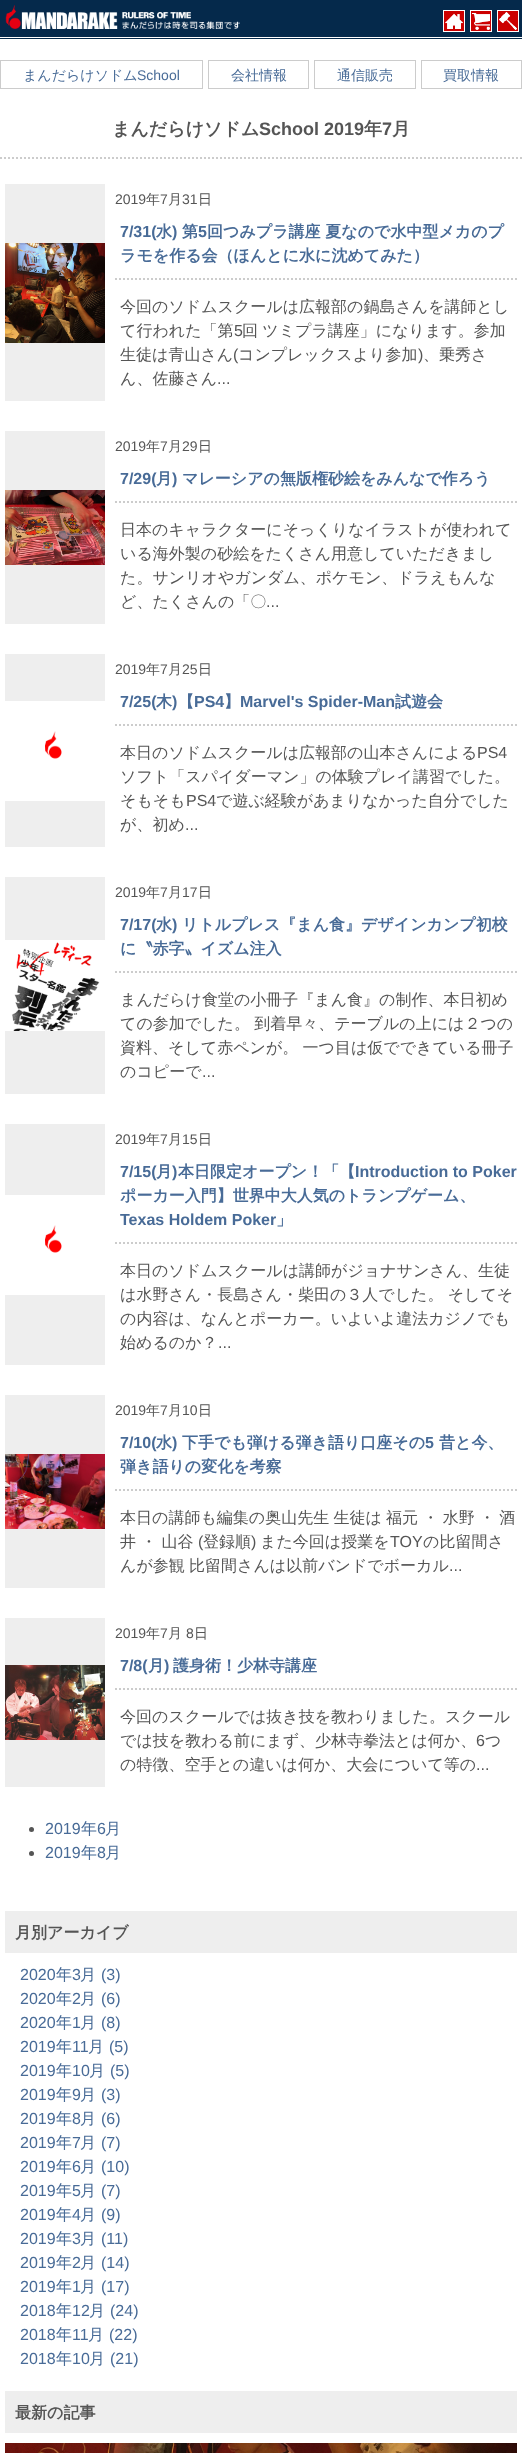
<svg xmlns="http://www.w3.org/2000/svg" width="522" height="2453">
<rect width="100%" height="100%" fill="#fff"/>
<rect width="522" height="39" fill="#05294b"/>
<rect y="37" width="522" height="1" fill="#fff"/>
<image x="5" y="5" width="235" height="24" href="media/1.png"/>
<rect x="443.5" y="10.5" width="21" height="21" fill="#c00" stroke="#fff"/>
<image x="445" y="13" width="18" height="16" href="media/2.png"/>
<rect x="470.5" y="10.5" width="21" height="21" fill="#c00" stroke="#fff"/>
<image x="472" y="13" width="18" height="17" href="media/3.png"/>
<rect x="497.5" y="10.5" width="21" height="21" fill="#c00" stroke="#fff"/>
<image x="499" y="12" width="18" height="18" href="media/4.png"/>
<rect x="0.5" y="60.5" width="202" height="28" fill="none" stroke="#ccc"/>
<text x="23" y="80" style="font-family:WenQuanYi Zen Hei;font-size:14px;font-weight:500;fill:#486b97">まんだらけソドム</text>
<text x="137" y="80" style="font-family:Liberation Sans;font-size:14px;fill:#486b97">School</text>
<rect x="208.5" y="60.5" width="100" height="28" fill="none" stroke="#ccc"/>
<text x="231" y="80" style="font-family:WenQuanYi Zen Hei;font-size:14px;font-weight:500;fill:#486b97">会社情報</text>
<rect x="314.5" y="60.5" width="101" height="28" fill="none" stroke="#ccc"/>
<text x="337" y="80" style="font-family:WenQuanYi Zen Hei;font-size:14px;font-weight:500;fill:#486b97">通信販売</text>
<rect x="421.5" y="60.5" width="100" height="28" fill="none" stroke="#ccc"/>
<text x="443" y="80" style="font-family:WenQuanYi Zen Hei;font-size:14px;font-weight:500;fill:#486b97">買取情報</text>
<path d="M0 158h522" fill="none" stroke="#ccc" stroke-width="2" stroke-dasharray="2 2"/>
<text x="112" y="135" style="font-family:WenQuanYi Zen Hei;font-size:18px;font-weight:bold;fill:#555">まんだらけソドム</text>
<text x="259" y="135" style="font-family:Liberation Sans;font-size:18px;font-weight:bold;fill:#555">School 2019</text>
<text x="364" y="135" style="font-family:WenQuanYi Zen Hei;font-size:18px;font-weight:bold;fill:#555">年</text>
<text x="382" y="135" style="font-family:Liberation Sans;font-size:18px;font-weight:bold;fill:#555">7</text>
<text x="392" y="135" style="font-family:WenQuanYi Zen Hei;font-size:18px;font-weight:bold;fill:#555">月</text>
<rect x="5" y="184" width="100" height="217" fill="#eee"/>
<image x="5" y="243" width="100" height="100" href="media/5.png"/>
<text x="115" y="204" style="font-family:Liberation Sans;font-size:14px;fill:#555">2019</text>
<text x="146" y="204" style="font-family:WenQuanYi Zen Hei;font-size:14px;font-weight:500;fill:#555">年</text>
<text x="160" y="204" style="font-family:Liberation Sans;font-size:14px;fill:#555">7</text>
<text x="168" y="204" style="font-family:WenQuanYi Zen Hei;font-size:14px;font-weight:500;fill:#555">月</text>
<text x="182" y="204" style="font-family:Liberation Sans;font-size:14px;fill:#555">31</text>
<text x="198" y="204" style="font-family:WenQuanYi Zen Hei;font-size:14px;font-weight:500;fill:#555">日</text>
<path d="M115 279h402" fill="none" stroke="#ccc" stroke-width="2" stroke-dasharray="2 2"/>
<text x="120" y="237" style="font-family:Liberation Sans;font-size:16px;font-weight:bold;fill:#486b97">7/31(</text>
<text x="156" y="237" style="font-family:WenQuanYi Zen Hei;font-size:16px;font-weight:bold;fill:#486b97">水</text>
<text x="172" y="237" style="font-family:Liberation Sans;font-size:16px;font-weight:bold;fill:#486b97">)</text>
<text x="182" y="237" style="font-family:WenQuanYi Zen Hei;font-size:16px;font-weight:bold;fill:#486b97">第</text>
<text x="198" y="237" style="font-family:Liberation Sans;font-size:16px;font-weight:bold;fill:#486b97">5</text>
<text x="207" y="237" style="font-family:WenQuanYi Zen Hei;font-size:16px;font-weight:bold;fill:#486b97">回つみプラ講座 夏なので水中型メカのプ</text>
<text x="120" y="261" style="font-family:WenQuanYi Zen Hei;font-size:16px;font-weight:bold;fill:#486b97">ラモを作る会（ほんとに水に沈めてみた）</text>
<text x="120" y="312" style="font-family:WenQuanYi Zen Hei;font-size:16px;font-weight:500;fill:#555">今回のソドムスクールは広報部の鍋島さんを講師とし</text>
<text x="120" y="336" style="font-family:WenQuanYi Zen Hei;font-size:16px;font-weight:500;fill:#555">て行われた「第</text>
<text x="234" y="336" style="font-family:Liberation Sans;font-size:16px;fill:#555">5</text>
<text x="242" y="336" word-spacing="-0.5" style="font-family:WenQuanYi Zen Hei;font-size:16px;font-weight:500;fill:#555">回 ツミプラ講座」になります。参加</text>
<text x="120" y="360" style="font-family:WenQuanYi Zen Hei;font-size:16px;font-weight:500;fill:#555">生徒は青山さん</text>
<text x="233" y="360" style="font-family:Liberation Sans;font-size:16px;fill:#555">(</text>
<text x="238" y="360" style="font-family:WenQuanYi Zen Hei;font-size:16px;font-weight:500;fill:#555">コンプレックスより参加</text>
<text x="418" y="360" style="font-family:Liberation Sans;font-size:16px;fill:#555">)</text>
<text x="423" y="360" style="font-family:WenQuanYi Zen Hei;font-size:16px;font-weight:500;fill:#555">、乗秀さ</text>
<text x="120" y="384" style="font-family:WenQuanYi Zen Hei;font-size:16px;font-weight:500;fill:#555">ん、佐藤さん</text>
<text x="217" y="384" style="font-family:Liberation Sans;font-size:16px;fill:#555">...</text>
<rect x="5" y="431" width="100" height="193" fill="#eee"/>
<image x="5" y="490" width="100" height="75" href="media/6.png"/>
<text x="115" y="451" style="font-family:Liberation Sans;font-size:14px;fill:#555">2019</text>
<text x="146" y="451" style="font-family:WenQuanYi Zen Hei;font-size:14px;font-weight:500;fill:#555">年</text>
<text x="160" y="451" style="font-family:Liberation Sans;font-size:14px;fill:#555">7</text>
<text x="168" y="451" style="font-family:WenQuanYi Zen Hei;font-size:14px;font-weight:500;fill:#555">月</text>
<text x="182" y="451" style="font-family:Liberation Sans;font-size:14px;fill:#555">29</text>
<text x="198" y="451" style="font-family:WenQuanYi Zen Hei;font-size:14px;font-weight:500;fill:#555">日</text>
<path d="M115 502h402" fill="none" stroke="#ccc" stroke-width="2" stroke-dasharray="2 2"/>
<text x="120" y="484" style="font-family:Liberation Sans;font-size:16px;font-weight:bold;fill:#486b97">7/29(</text>
<text x="156" y="484" style="font-family:WenQuanYi Zen Hei;font-size:16px;font-weight:bold;fill:#486b97">月</text>
<text x="172" y="484" style="font-family:Liberation Sans;font-size:16px;font-weight:bold;fill:#486b97">)</text>
<text x="182" y="484" style="font-family:WenQuanYi Zen Hei;font-size:16px;font-weight:bold;fill:#486b97">マレーシアの無版権砂絵をみんなで作ろう</text>
<text x="120" y="535" style="font-family:WenQuanYi Zen Hei;font-size:16px;font-weight:500;fill:#555">日本のキャラクターにそっくりなイラストが使われて</text>
<text x="120" y="559" style="font-family:WenQuanYi Zen Hei;font-size:16px;font-weight:500;fill:#555">いる海外製の砂絵をたくさん用意していただきまし</text>
<text x="120" y="583" style="font-family:WenQuanYi Zen Hei;font-size:16px;font-weight:500;fill:#555">た。サンリオやガンダム、ポケモン、ドラえもんな</text>
<text x="120" y="607" style="font-family:WenQuanYi Zen Hei;font-size:16px;font-weight:500;fill:#555">ど、たくさんの「〇</text>
<text x="266" y="607" style="font-family:Liberation Sans;font-size:16px;fill:#555">...</text>
<rect x="5" y="654" width="100" height="193" fill="#eee"/>
<image x="5" y="701" width="100" height="100" href="media/7.png"/>
<text x="115" y="674" style="font-family:Liberation Sans;font-size:14px;fill:#555">2019</text>
<text x="146" y="674" style="font-family:WenQuanYi Zen Hei;font-size:14px;font-weight:500;fill:#555">年</text>
<text x="160" y="674" style="font-family:Liberation Sans;font-size:14px;fill:#555">7</text>
<text x="168" y="674" style="font-family:WenQuanYi Zen Hei;font-size:14px;font-weight:500;fill:#555">月</text>
<text x="182" y="674" style="font-family:Liberation Sans;font-size:14px;fill:#555">25</text>
<text x="198" y="674" style="font-family:WenQuanYi Zen Hei;font-size:14px;font-weight:500;fill:#555">日</text>
<path d="M115 725h402" fill="none" stroke="#ccc" stroke-width="2" stroke-dasharray="2 2"/>
<text x="120" y="707" style="font-family:Liberation Sans;font-size:16px;font-weight:bold;fill:#486b97">7/25(</text>
<text x="156" y="707" style="font-family:WenQuanYi Zen Hei;font-size:16px;font-weight:bold;fill:#486b97">木</text>
<text x="172" y="707" style="font-family:Liberation Sans;font-size:16px;font-weight:bold;fill:#486b97">)</text>
<text x="178" y="707" style="font-family:WenQuanYi Zen Hei;font-size:16px;font-weight:bold;fill:#486b97">【</text>
<text x="194" y="707" style="font-family:Liberation Sans;font-size:16px;font-weight:bold;fill:#486b97">PS4</text>
<text x="224" y="707" style="font-family:WenQuanYi Zen Hei;font-size:16px;font-weight:bold;fill:#486b97">】</text>
<text x="240" y="707" style="font-family:Liberation Sans;font-size:16px;font-weight:bold;fill:#486b97">Marvel's Spider-Man</text>
<text x="395" y="707" style="font-family:WenQuanYi Zen Hei;font-size:16px;font-weight:bold;fill:#486b97">試遊会</text>
<text x="120" y="758" style="font-family:WenQuanYi Zen Hei;font-size:16px;font-weight:500;fill:#555">本日のソドムスクールは広報部の山本さんによる</text>
<text x="477" y="758" style="font-family:Liberation Sans;font-size:16px;fill:#555">PS4</text>
<text x="120" y="782" style="font-family:WenQuanYi Zen Hei;font-size:16px;font-weight:500;fill:#555">ソフト「スパイダーマン」の体験プレイ講習でした。</text>
<text x="120" y="806" style="font-family:WenQuanYi Zen Hei;font-size:16px;font-weight:500;fill:#555">そもそも</text>
<text x="186" y="806" style="font-family:Liberation Sans;font-size:16px;fill:#555">PS4</text>
<text x="216" y="806" style="font-family:WenQuanYi Zen Hei;font-size:16px;font-weight:500;fill:#555">で遊ぶ経験があまりなかった自分でした</text>
<text x="120" y="830" style="font-family:WenQuanYi Zen Hei;font-size:16px;font-weight:500;fill:#555">が、初め</text>
<text x="185" y="830" style="font-family:Liberation Sans;font-size:16px;fill:#555">...</text>
<rect x="5" y="877" width="100" height="217" fill="#eee"/>
<image x="5" y="940" width="100" height="91" href="media/8.png"/>
<text x="115" y="897" style="font-family:Liberation Sans;font-size:14px;fill:#555">2019</text>
<text x="146" y="897" style="font-family:WenQuanYi Zen Hei;font-size:14px;font-weight:500;fill:#555">年</text>
<text x="160" y="897" style="font-family:Liberation Sans;font-size:14px;fill:#555">7</text>
<text x="168" y="897" style="font-family:WenQuanYi Zen Hei;font-size:14px;font-weight:500;fill:#555">月</text>
<text x="182" y="897" style="font-family:Liberation Sans;font-size:14px;fill:#555">17</text>
<text x="198" y="897" style="font-family:WenQuanYi Zen Hei;font-size:14px;font-weight:500;fill:#555">日</text>
<path d="M115 972h402" fill="none" stroke="#ccc" stroke-width="2" stroke-dasharray="2 2"/>
<text x="120" y="930" style="font-family:Liberation Sans;font-size:16px;font-weight:bold;fill:#486b97">7/17(</text>
<text x="156" y="930" style="font-family:WenQuanYi Zen Hei;font-size:16px;font-weight:bold;fill:#486b97">水</text>
<text x="172" y="930" style="font-family:Liberation Sans;font-size:16px;font-weight:bold;fill:#486b97">)</text>
<text x="182" y="930" style="font-family:WenQuanYi Zen Hei;font-size:16px;font-weight:bold;fill:#486b97">リトルプレス『まん食』デザインカンプ初校</text>
<text x="120" y="954" style="font-family:WenQuanYi Zen Hei;font-size:16px;font-weight:bold;fill:#486b97">に〝赤字〟イズム注入</text>
<text x="120" y="1005" style="font-family:WenQuanYi Zen Hei;font-size:16px;font-weight:500;fill:#555">まんだらけ食堂の小冊子『まん食』の制作、本日初め</text>
<text x="120" y="1029" word-spacing="-0.5" style="font-family:WenQuanYi Zen Hei;font-size:16px;font-weight:500;fill:#555">ての参加でした。 到着早々、テーブルの上には２つの</text>
<text x="120" y="1053" word-spacing="-0.5" style="font-family:WenQuanYi Zen Hei;font-size:16px;font-weight:500;fill:#555">資料、そして赤ペンが。 一つ目は仮でできている冊子</text>
<text x="120" y="1077" style="font-family:WenQuanYi Zen Hei;font-size:16px;font-weight:500;fill:#555">のコピーで</text>
<text x="202" y="1077" style="font-family:Liberation Sans;font-size:16px;fill:#555">...</text>
<rect x="5" y="1124" width="100" height="241" fill="#eee"/>
<image x="5" y="1195" width="100" height="100" href="media/7.png"/>
<text x="115" y="1144" style="font-family:Liberation Sans;font-size:14px;fill:#555">2019</text>
<text x="146" y="1144" style="font-family:WenQuanYi Zen Hei;font-size:14px;font-weight:500;fill:#555">年</text>
<text x="160" y="1144" style="font-family:Liberation Sans;font-size:14px;fill:#555">7</text>
<text x="168" y="1144" style="font-family:WenQuanYi Zen Hei;font-size:14px;font-weight:500;fill:#555">月</text>
<text x="182" y="1144" style="font-family:Liberation Sans;font-size:14px;fill:#555">15</text>
<text x="198" y="1144" style="font-family:WenQuanYi Zen Hei;font-size:14px;font-weight:500;fill:#555">日</text>
<path d="M115 1243h402" fill="none" stroke="#ccc" stroke-width="2" stroke-dasharray="2 2"/>
<text x="120" y="1177" style="font-family:Liberation Sans;font-size:16px;font-weight:bold;fill:#486b97">7/15(</text>
<text x="156" y="1177" style="font-family:WenQuanYi Zen Hei;font-size:16px;font-weight:bold;fill:#486b97">月</text>
<text x="172" y="1177" style="font-family:Liberation Sans;font-size:16px;font-weight:bold;fill:#486b97">)</text>
<text x="178" y="1177" style="font-family:WenQuanYi Zen Hei;font-size:16px;font-weight:bold;fill:#486b97">本日限定オープン！「【</text>
<text x="355" y="1177" style="font-family:Liberation Sans;font-size:16px;font-weight:bold;fill:#486b97">Introduction to Poker</text>
<text x="120" y="1201" style="font-family:WenQuanYi Zen Hei;font-size:16px;font-weight:bold;fill:#486b97">ポーカー入門】世界中大人気のトランプゲーム、</text>
<text x="120" y="1225" style="font-family:Liberation Sans;font-size:16px;font-weight:bold;fill:#486b97">Texas Holdem Poker</text>
<text x="276" y="1225" style="font-family:WenQuanYi Zen Hei;font-size:16px;font-weight:bold;fill:#486b97">」</text>
<text x="120" y="1276" style="font-family:WenQuanYi Zen Hei;font-size:16px;font-weight:500;fill:#555">本日のソドムスクールは講師がジョナサンさん、生徒</text>
<text x="120" y="1300" word-spacing="-0.5" style="font-family:WenQuanYi Zen Hei;font-size:16px;font-weight:500;fill:#555">は水野さん・長島さん・柴田の３人でした。 そしてそ</text>
<text x="120" y="1324" style="font-family:WenQuanYi Zen Hei;font-size:16px;font-weight:500;fill:#555">の内容は、なんとポーカー。いよいよ違法カジノでも</text>
<text x="120" y="1348" style="font-family:WenQuanYi Zen Hei;font-size:16px;font-weight:500;fill:#555">始めるのか？</text>
<text x="218" y="1348" style="font-family:Liberation Sans;font-size:16px;fill:#555">...</text>
<rect x="5" y="1395" width="100" height="193" fill="#eee"/>
<image x="5" y="1454" width="100" height="75" href="media/9.png"/>
<text x="115" y="1415" style="font-family:Liberation Sans;font-size:14px;fill:#555">2019</text>
<text x="146" y="1415" style="font-family:WenQuanYi Zen Hei;font-size:14px;font-weight:500;fill:#555">年</text>
<text x="160" y="1415" style="font-family:Liberation Sans;font-size:14px;fill:#555">7</text>
<text x="168" y="1415" style="font-family:WenQuanYi Zen Hei;font-size:14px;font-weight:500;fill:#555">月</text>
<text x="182" y="1415" style="font-family:Liberation Sans;font-size:14px;fill:#555">10</text>
<text x="198" y="1415" style="font-family:WenQuanYi Zen Hei;font-size:14px;font-weight:500;fill:#555">日</text>
<path d="M115 1490h402" fill="none" stroke="#ccc" stroke-width="2" stroke-dasharray="2 2"/>
<text x="120" y="1448" style="font-family:Liberation Sans;font-size:16px;font-weight:bold;fill:#486b97">7/10(</text>
<text x="156" y="1448" style="font-family:WenQuanYi Zen Hei;font-size:16px;font-weight:bold;fill:#486b97">水</text>
<text x="172" y="1448" style="font-family:Liberation Sans;font-size:16px;font-weight:bold;fill:#486b97">)</text>
<text x="182" y="1448" style="font-family:WenQuanYi Zen Hei;font-size:16px;font-weight:bold;fill:#486b97">下手でも弾ける弾き語り口座その</text>
<text x="425" y="1448" style="font-family:Liberation Sans;font-size:16px;font-weight:bold;fill:#486b97">5</text>
<text x="439" y="1448" style="font-family:WenQuanYi Zen Hei;font-size:16px;font-weight:bold;fill:#486b97">昔と今、</text>
<text x="120" y="1472" style="font-family:WenQuanYi Zen Hei;font-size:16px;font-weight:bold;fill:#486b97">弾き語りの変化を考察</text>
<text x="120" y="1523" word-spacing="-0.5" style="font-family:WenQuanYi Zen Hei;font-size:16px;font-weight:500;fill:#555">本日の講師も編集の奥山先生 生徒は 福元 ・ 水野 ・ 酒</text>
<text x="120" y="1547" style="font-family:WenQuanYi Zen Hei;font-size:16px;font-weight:500;fill:#555">井 ・ 山谷</text>
<text x="198" y="1547" style="font-family:Liberation Sans;font-size:16px;fill:#555">(</text>
<text x="203" y="1547" style="font-family:WenQuanYi Zen Hei;font-size:16px;font-weight:500;fill:#555">登録順</text>
<text x="251" y="1547" style="font-family:Liberation Sans;font-size:16px;fill:#555">)</text>
<text x="260" y="1547" style="font-family:WenQuanYi Zen Hei;font-size:16px;font-weight:500;fill:#555">また今回は授業を</text>
<text x="390" y="1547" style="font-family:Liberation Sans;font-size:16px;fill:#555">TOY</text>
<text x="423" y="1547" style="font-family:WenQuanYi Zen Hei;font-size:16px;font-weight:500;fill:#555">の比留間さ</text>
<text x="120" y="1571" word-spacing="-0.5" style="font-family:WenQuanYi Zen Hei;font-size:16px;font-weight:500;fill:#555">んが参観 比留間さんは以前バンドでボーカル</text>
<text x="449" y="1571" style="font-family:Liberation Sans;font-size:16px;fill:#555">...</text>
<rect x="5" y="1618" width="100" height="169" fill="#eee"/>
<image x="5" y="1665" width="100" height="75" href="media/10.png"/>
<text x="115" y="1638" style="font-family:Liberation Sans;font-size:14px;fill:#555">2019</text>
<text x="146" y="1638" style="font-family:WenQuanYi Zen Hei;font-size:14px;font-weight:500;fill:#555">年</text>
<text x="160" y="1638" style="font-family:Liberation Sans;font-size:14px;fill:#555">7</text>
<text x="168" y="1638" style="font-family:WenQuanYi Zen Hei;font-size:14px;font-weight:500;fill:#555">月</text>
<text x="186" y="1638" style="font-family:Liberation Sans;font-size:14px;fill:#555">8</text>
<text x="194" y="1638" style="font-family:WenQuanYi Zen Hei;font-size:14px;font-weight:500;fill:#555">日</text>
<path d="M115 1689h402" fill="none" stroke="#ccc" stroke-width="2" stroke-dasharray="2 2"/>
<text x="120" y="1671" style="font-family:Liberation Sans;font-size:16px;font-weight:bold;fill:#486b97">7/8(</text>
<text x="148" y="1671" style="font-family:WenQuanYi Zen Hei;font-size:16px;font-weight:bold;fill:#486b97">月</text>
<text x="164" y="1671" style="font-family:Liberation Sans;font-size:16px;font-weight:bold;fill:#486b97">)</text>
<text x="173" y="1671" style="font-family:WenQuanYi Zen Hei;font-size:16px;font-weight:bold;fill:#486b97">護身術！少林寺講座</text>
<text x="120" y="1722" style="font-family:WenQuanYi Zen Hei;font-size:16px;font-weight:500;fill:#555">今回のスクールでは抜き技を教わりました。スクール</text>
<text x="120" y="1746" style="font-family:WenQuanYi Zen Hei;font-size:16px;font-weight:500;fill:#555">では技を教わる前にまず、少林寺拳法とは何か、</text>
<text x="476" y="1746" style="font-family:Liberation Sans;font-size:16px;fill:#555">6</text>
<text x="485" y="1746" style="font-family:WenQuanYi Zen Hei;font-size:16px;font-weight:500;fill:#555">つ</text>
<text x="120" y="1770" style="font-family:WenQuanYi Zen Hei;font-size:16px;font-weight:500;fill:#555">の特徴、空手との違いは何か、大会について等の</text>
<text x="476" y="1770" style="font-family:Liberation Sans;font-size:16px;fill:#555">...</text>
<circle cx="31.5" cy="1829.5" r="2.5" fill="#555"/>
<text x="45" y="1834" style="font-family:Liberation Sans;font-size:16px;fill:#486b97">2019</text>
<text x="81" y="1834" style="font-family:WenQuanYi Zen Hei;font-size:16px;font-weight:500;fill:#486b97">年</text>
<text x="97" y="1834" style="font-family:Liberation Sans;font-size:16px;fill:#486b97">6</text>
<text x="105" y="1834" style="font-family:WenQuanYi Zen Hei;font-size:16px;font-weight:500;fill:#486b97">月</text>
<circle cx="31.5" cy="1853.5" r="2.5" fill="#555"/>
<text x="45" y="1858" style="font-family:Liberation Sans;font-size:16px;fill:#486b97">2019</text>
<text x="81" y="1858" style="font-family:WenQuanYi Zen Hei;font-size:16px;font-weight:500;fill:#486b97">年</text>
<text x="97" y="1858" style="font-family:Liberation Sans;font-size:16px;fill:#486b97">8</text>
<text x="105" y="1858" style="font-family:WenQuanYi Zen Hei;font-size:16px;font-weight:500;fill:#486b97">月</text>
<rect x="5" y="1911" width="512" height="42" fill="#eee"/>
<text x="15" y="1938" style="font-family:WenQuanYi Zen Hei;font-size:16px;font-weight:bold;fill:#555">月別アーカイブ</text>
<text x="20" y="1980" style="font-family:Liberation Sans;font-size:16px;fill:#486b97">2020</text>
<text x="56" y="1980" style="font-family:WenQuanYi Zen Hei;font-size:16px;font-weight:500;fill:#486b97">年</text>
<text x="72" y="1980" style="font-family:Liberation Sans;font-size:16px;fill:#486b97">3</text>
<text x="80" y="1980" style="font-family:WenQuanYi Zen Hei;font-size:16px;font-weight:500;fill:#486b97">月</text>
<text x="101" y="1980" style="font-family:Liberation Sans;font-size:16px;fill:#486b97">(3)</text>
<text x="20" y="2004" style="font-family:Liberation Sans;font-size:16px;fill:#486b97">2020</text>
<text x="56" y="2004" style="font-family:WenQuanYi Zen Hei;font-size:16px;font-weight:500;fill:#486b97">年</text>
<text x="72" y="2004" style="font-family:Liberation Sans;font-size:16px;fill:#486b97">2</text>
<text x="80" y="2004" style="font-family:WenQuanYi Zen Hei;font-size:16px;font-weight:500;fill:#486b97">月</text>
<text x="101" y="2004" style="font-family:Liberation Sans;font-size:16px;fill:#486b97">(6)</text>
<text x="20" y="2028" style="font-family:Liberation Sans;font-size:16px;fill:#486b97">2020</text>
<text x="56" y="2028" style="font-family:WenQuanYi Zen Hei;font-size:16px;font-weight:500;fill:#486b97">年</text>
<text x="72" y="2028" style="font-family:Liberation Sans;font-size:16px;fill:#486b97">1</text>
<text x="80" y="2028" style="font-family:WenQuanYi Zen Hei;font-size:16px;font-weight:500;fill:#486b97">月</text>
<text x="101" y="2028" style="font-family:Liberation Sans;font-size:16px;fill:#486b97">(8)</text>
<text x="20" y="2052" style="font-family:Liberation Sans;font-size:16px;fill:#486b97">2019</text>
<text x="56" y="2052" style="font-family:WenQuanYi Zen Hei;font-size:16px;font-weight:500;fill:#486b97">年</text>
<text x="72" y="2052" style="font-family:Liberation Sans;font-size:16px;fill:#486b97">11</text>
<text x="88" y="2052" style="font-family:WenQuanYi Zen Hei;font-size:16px;font-weight:500;fill:#486b97">月</text>
<text x="109" y="2052" style="font-family:Liberation Sans;font-size:16px;fill:#486b97">(5)</text>
<text x="20" y="2076" style="font-family:Liberation Sans;font-size:16px;fill:#486b97">2019</text>
<text x="56" y="2076" style="font-family:WenQuanYi Zen Hei;font-size:16px;font-weight:500;fill:#486b97">年</text>
<text x="72" y="2076" style="font-family:Liberation Sans;font-size:16px;fill:#486b97">10</text>
<text x="89" y="2076" style="font-family:WenQuanYi Zen Hei;font-size:16px;font-weight:500;fill:#486b97">月</text>
<text x="110" y="2076" style="font-family:Liberation Sans;font-size:16px;fill:#486b97">(5)</text>
<text x="20" y="2100" style="font-family:Liberation Sans;font-size:16px;fill:#486b97">2019</text>
<text x="56" y="2100" style="font-family:WenQuanYi Zen Hei;font-size:16px;font-weight:500;fill:#486b97">年</text>
<text x="72" y="2100" style="font-family:Liberation Sans;font-size:16px;fill:#486b97">9</text>
<text x="80" y="2100" style="font-family:WenQuanYi Zen Hei;font-size:16px;font-weight:500;fill:#486b97">月</text>
<text x="101" y="2100" style="font-family:Liberation Sans;font-size:16px;fill:#486b97">(3)</text>
<text x="20" y="2124" style="font-family:Liberation Sans;font-size:16px;fill:#486b97">2019</text>
<text x="56" y="2124" style="font-family:WenQuanYi Zen Hei;font-size:16px;font-weight:500;fill:#486b97">年</text>
<text x="72" y="2124" style="font-family:Liberation Sans;font-size:16px;fill:#486b97">8</text>
<text x="80" y="2124" style="font-family:WenQuanYi Zen Hei;font-size:16px;font-weight:500;fill:#486b97">月</text>
<text x="101" y="2124" style="font-family:Liberation Sans;font-size:16px;fill:#486b97">(6)</text>
<text x="20" y="2148" style="font-family:Liberation Sans;font-size:16px;fill:#486b97">2019</text>
<text x="56" y="2148" style="font-family:WenQuanYi Zen Hei;font-size:16px;font-weight:500;fill:#486b97">年</text>
<text x="72" y="2148" style="font-family:Liberation Sans;font-size:16px;fill:#486b97">7</text>
<text x="80" y="2148" style="font-family:WenQuanYi Zen Hei;font-size:16px;font-weight:500;fill:#486b97">月</text>
<text x="101" y="2148" style="font-family:Liberation Sans;font-size:16px;fill:#486b97">(7)</text>
<text x="20" y="2172" style="font-family:Liberation Sans;font-size:16px;fill:#486b97">2019</text>
<text x="56" y="2172" style="font-family:WenQuanYi Zen Hei;font-size:16px;font-weight:500;fill:#486b97">年</text>
<text x="72" y="2172" style="font-family:Liberation Sans;font-size:16px;fill:#486b97">6</text>
<text x="80" y="2172" style="font-family:WenQuanYi Zen Hei;font-size:16px;font-weight:500;fill:#486b97">月</text>
<text x="101" y="2172" style="font-family:Liberation Sans;font-size:16px;fill:#486b97">(10)</text>
<text x="20" y="2196" style="font-family:Liberation Sans;font-size:16px;fill:#486b97">2019</text>
<text x="56" y="2196" style="font-family:WenQuanYi Zen Hei;font-size:16px;font-weight:500;fill:#486b97">年</text>
<text x="72" y="2196" style="font-family:Liberation Sans;font-size:16px;fill:#486b97">5</text>
<text x="80" y="2196" style="font-family:WenQuanYi Zen Hei;font-size:16px;font-weight:500;fill:#486b97">月</text>
<text x="101" y="2196" style="font-family:Liberation Sans;font-size:16px;fill:#486b97">(7)</text>
<text x="20" y="2220" style="font-family:Liberation Sans;font-size:16px;fill:#486b97">2019</text>
<text x="56" y="2220" style="font-family:WenQuanYi Zen Hei;font-size:16px;font-weight:500;fill:#486b97">年</text>
<text x="72" y="2220" style="font-family:Liberation Sans;font-size:16px;fill:#486b97">4</text>
<text x="80" y="2220" style="font-family:WenQuanYi Zen Hei;font-size:16px;font-weight:500;fill:#486b97">月</text>
<text x="101" y="2220" style="font-family:Liberation Sans;font-size:16px;fill:#486b97">(9)</text>
<text x="20" y="2244" style="font-family:Liberation Sans;font-size:16px;fill:#486b97">2019</text>
<text x="56" y="2244" style="font-family:WenQuanYi Zen Hei;font-size:16px;font-weight:500;fill:#486b97">年</text>
<text x="72" y="2244" style="font-family:Liberation Sans;font-size:16px;fill:#486b97">3</text>
<text x="80" y="2244" style="font-family:WenQuanYi Zen Hei;font-size:16px;font-weight:500;fill:#486b97">月</text>
<text x="101" y="2244" style="font-family:Liberation Sans;font-size:16px;fill:#486b97">(11)</text>
<text x="20" y="2268" style="font-family:Liberation Sans;font-size:16px;fill:#486b97">2019</text>
<text x="56" y="2268" style="font-family:WenQuanYi Zen Hei;font-size:16px;font-weight:500;fill:#486b97">年</text>
<text x="72" y="2268" style="font-family:Liberation Sans;font-size:16px;fill:#486b97">2</text>
<text x="80" y="2268" style="font-family:WenQuanYi Zen Hei;font-size:16px;font-weight:500;fill:#486b97">月</text>
<text x="101" y="2268" style="font-family:Liberation Sans;font-size:16px;fill:#486b97">(14)</text>
<text x="20" y="2292" style="font-family:Liberation Sans;font-size:16px;fill:#486b97">2019</text>
<text x="56" y="2292" style="font-family:WenQuanYi Zen Hei;font-size:16px;font-weight:500;fill:#486b97">年</text>
<text x="72" y="2292" style="font-family:Liberation Sans;font-size:16px;fill:#486b97">1</text>
<text x="80" y="2292" style="font-family:WenQuanYi Zen Hei;font-size:16px;font-weight:500;fill:#486b97">月</text>
<text x="101" y="2292" style="font-family:Liberation Sans;font-size:16px;fill:#486b97">(17)</text>
<text x="20" y="2316" style="font-family:Liberation Sans;font-size:16px;fill:#486b97">2018</text>
<text x="56" y="2316" style="font-family:WenQuanYi Zen Hei;font-size:16px;font-weight:500;fill:#486b97">年</text>
<text x="72" y="2316" style="font-family:Liberation Sans;font-size:16px;fill:#486b97">12</text>
<text x="89" y="2316" style="font-family:WenQuanYi Zen Hei;font-size:16px;font-weight:500;fill:#486b97">月</text>
<text x="110" y="2316" style="font-family:Liberation Sans;font-size:16px;fill:#486b97">(24)</text>
<text x="20" y="2340" style="font-family:Liberation Sans;font-size:16px;fill:#486b97">2018</text>
<text x="56" y="2340" style="font-family:WenQuanYi Zen Hei;font-size:16px;font-weight:500;fill:#486b97">年</text>
<text x="72" y="2340" style="font-family:Liberation Sans;font-size:16px;fill:#486b97">11</text>
<text x="88" y="2340" style="font-family:WenQuanYi Zen Hei;font-size:16px;font-weight:500;fill:#486b97">月</text>
<text x="109" y="2340" style="font-family:Liberation Sans;font-size:16px;fill:#486b97">(22)</text>
<text x="20" y="2364" style="font-family:Liberation Sans;font-size:16px;fill:#486b97">2018</text>
<text x="56" y="2364" style="font-family:WenQuanYi Zen Hei;font-size:16px;font-weight:500;fill:#486b97">年</text>
<text x="72" y="2364" style="font-family:Liberation Sans;font-size:16px;fill:#486b97">10</text>
<text x="89" y="2364" style="font-family:WenQuanYi Zen Hei;font-size:16px;font-weight:500;fill:#486b97">月</text>
<text x="110" y="2364" style="font-family:Liberation Sans;font-size:16px;fill:#486b97">(21)</text>
<rect x="5" y="2391" width="512" height="42" fill="#eee"/>
<text x="15" y="2418" style="font-family:WenQuanYi Zen Hei;font-size:16px;font-weight:bold;fill:#555">最新の記事</text>
<image x="5" y="2443" width="512" height="10" href="media/11.png"/>
</svg>
